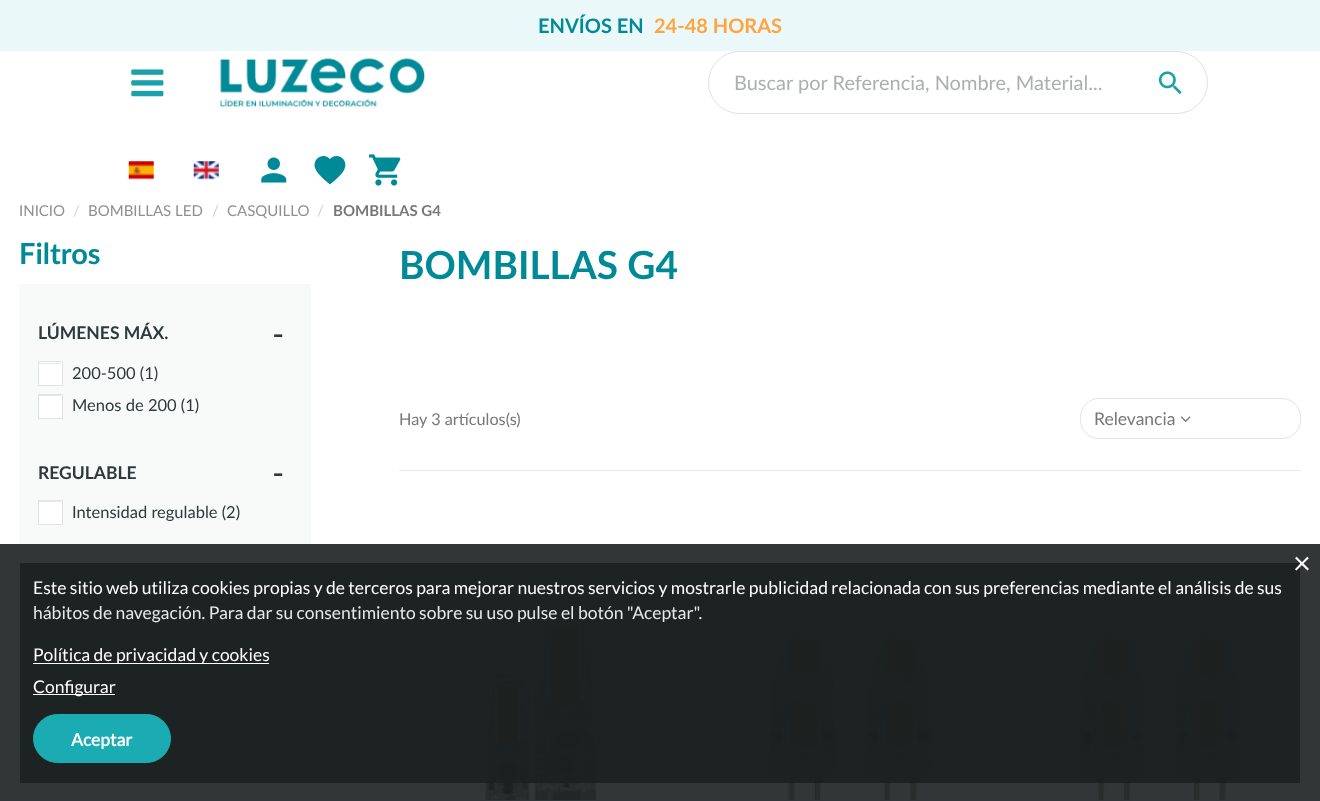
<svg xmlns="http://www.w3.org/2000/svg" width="1320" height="801">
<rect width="100%" height="100%" fill="#fff"/>
<rect y="544" width="1320" height="257" fill="#323636"/>
<rect width="1320" height="51" fill="#ebf8f9"/>
<text x="538" y="33" style="font-family:Lato;font-size:20px;font-weight:bold;fill:#008996">ENVÍOS EN</text>
<text x="654" y="33" style="font-family:Lato;font-size:20px;font-weight:bold;fill:#ffa540">24-48 HORAS</text>
<image x="131" y="69" width="33" height="28" href="media/1.png"/>
<image x="219" y="58" width="206" height="49" href="media/2.png"/>
<rect x="708.5" y="51.5" width="499" height="62" rx="31" fill="none" stroke="#e0e1e1"/>
<text x="734" y="90" style="font-family:Lato;font-size:20px;fill:#abafb0">Buscar por Referencia, Nombre, Material...</text>
<image x="1158" y="71" width="24" height="24" href="media/3.png"/>
<image x="128" y="161" width="26" height="19" href="media/4.png"/>
<image x="193" y="161" width="26" height="19" href="media/5.png"/>
<image x="261" y="157" width="26" height="26" href="media/6.png"/>
<path d="M330 184.5c-5-4.5-12-9.5-14.5-15.5c-4.5-10 8-17.5 14.5-10c6.5-7.5 19 0 14.5 10c-2.5 6-9.5 11-14.5 15.5z" fill="#008996"/>
<image x="369" y="154" width="32" height="32" href="media/7.png"/>
<text x="19" y="216" style="font-family:Lato;font-size:15px;fill:#8f8f8f">INICIO</text>
<text x="73" y="216" style="font-family:Lato;font-size:15px;fill:#d2d2d2">/</text>
<text x="88" y="216" style="font-family:Lato;font-size:15px;fill:#8f8f8f">BOMBILLAS LED</text>
<text x="212" y="216" style="font-family:Lato;font-size:15px;fill:#d2d2d2">/</text>
<text x="227" y="216" style="font-family:Lato;font-size:15px;fill:#8f8f8f">CASQUILLO</text>
<text x="317" y="216" style="font-family:Lato;font-size:15px;fill:#d2d2d2">/</text>
<text x="333" y="216" style="font-family:Lato;font-size:15px;font-weight:bold;fill:#777">BOMBILLAS G4</text>
<text x="19" y="264" style="font-family:Lato;font-size:29px;font-weight:bold;fill:#008996">Filtros</text>
<rect x="19" y="284" width="292" height="260" fill="#f8f9f9"/>
<text x="38" y="339" style="font-family:Lato;font-size:17.5px;font-weight:bold;fill:#2e393a">LÚMENES MÁX.</text>
<text x="273" y="343" style="font-family:Liberation Serif;font-size:31px;font-weight:bold;fill:#2e393a">-</text>
<rect x="39" y="362" width="23" height="23" fill="#fff"/>
<rect x="39" y="363" width="22" height="1" fill="#e8e8e8"/>
<rect x="38.5" y="361.5" width="24" height="24" fill="none" stroke="#e2e2e2"/>
<text x="72" y="379" style="font-family:Lato;font-size:16.5px;fill:#2e393a">200-500 (1)</text>
<rect x="39" y="395" width="23" height="23" fill="#fff"/>
<rect x="39" y="395" width="22" height="1" fill="#e8e8e8"/>
<rect x="38.5" y="394.5" width="24" height="24" fill="none" stroke="#e2e2e2"/>
<text x="72" y="411" style="font-family:Lato;font-size:16.5px;fill:#2e393a">Menos de 200 (1)</text>
<text x="38" y="479" style="font-family:Lato;font-size:17.5px;font-weight:bold;fill:#2e393a">REGULABLE</text>
<text x="273" y="482" style="font-family:Liberation Serif;font-size:31px;font-weight:bold;fill:#2e393a">-</text>
<rect x="39" y="501" width="23" height="23" fill="#fff"/>
<rect x="39" y="501" width="22" height="1" fill="#e8e8e8"/>
<rect x="38.5" y="500.5" width="24" height="24" fill="none" stroke="#e2e2e2"/>
<text x="72" y="518" style="font-family:Lato;font-size:16.5px;fill:#2e393a">Intensidad regulable (2)</text>
<text x="399" y="279" style="font-family:Lato;font-size:38.75px;font-weight:bold;fill:#008996">BOMBILLAS G4</text>
<text x="399" y="425" style="font-family:Lato;font-size:16.25px;fill:#777">Hay 3 artículos(s)</text>
<rect x="1080.5" y="398.5" width="220" height="40" rx="18.5" fill="none" stroke="#e3e3e3"/>
<text x="1094" y="425" style="font-family:Lato;font-size:17.5px;fill:#777">Relevancia</text>
<image x="1180" y="416" width="11" height="6" href="media/8.png"/>
<rect x="399" y="470" width="902" height="1" fill="#e8e8e8"/>
<image x="485" y="625" width="115" height="176" href="media/9.png"/>
<image x="765" y="631" width="174" height="170" href="media/10.png"/>
<image x="1075" y="631" width="173" height="170" href="media/11.png"/>
<rect x="0.5" y="544.5" width="1319" height="256" fill="none" stroke="#2e393ae6"/>
<rect x="20" y="563" width="1280" height="220" fill="#1b2020e6"/>
<text x="1293" y="574" style="font-family:'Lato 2';font-size:31px;fill:#fff">×</text>
<text x="33" y="594" style="font-family:'Lato 2';font-size:17.5px;fill:#fff">Este sitio web utiliza cookies propias y de terceros para mejorar nuestros servicios y mostrarle publicidad relacionada con sus preferencias mediante el análisis de sus</text>
<text x="33" y="619" style="font-family:'Lato 2';font-size:17.5px;fill:#e8e9e9">hábitos de navegación. Para dar su consentimiento sobre su uso pulse el botón "Aceptar".</text>
<rect x="33" y="663" width="236" height="1" fill="#fff"/>
<text x="33" y="661" style="font-family:'Lato 2';font-size:17.5px;fill:#fff">Política de privacidad y cookies</text>
<rect x="33" y="694" width="82" height="1" fill="#fff"/>
<text x="33" y="693" style="font-family:'Lato 2';font-size:17.5px;fill:#fff">Configurar</text>
<rect x="33.5" y="714.5" width="137" height="48" rx="24" fill="#1aabb3" stroke="#1aabb3"/>
<text x="71" y="746" style="font-family:'Lato 2';font-size:17.5px;font-weight:bold;fill:#fff">Aceptar</text>
</svg>
